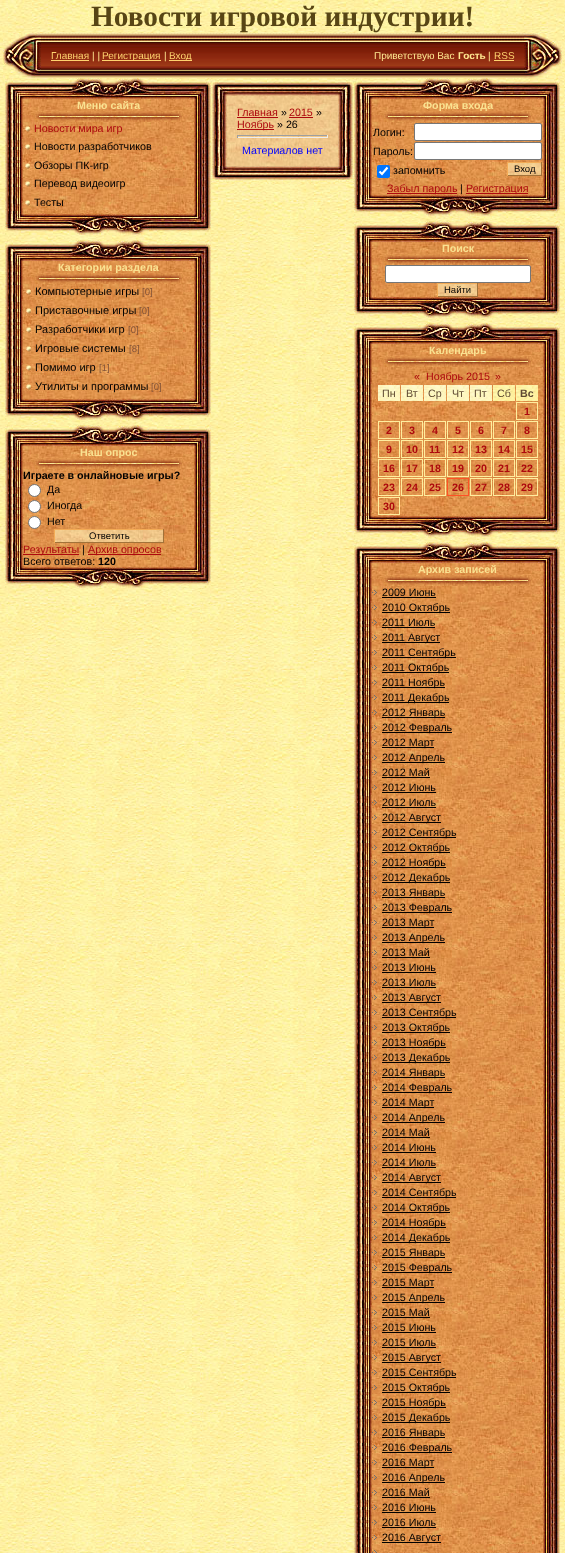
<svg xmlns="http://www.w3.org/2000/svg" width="565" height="1553">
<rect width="100%" height="100%" fill="#fff"/>
<image x="0" y="0" width="565" height="1553" href="media/1.png"/>
<text x="91" y="26" style="font-family:Liberation Serif;font-size:29.3px;font-weight:bold;fill:#574515">Новости игровой индустрии!</text>
<image x="41" y="33" width="483" height="45" href="media/2.png"/>
<image x="3" y="33" width="38" height="45" href="media/3.png"/>
<text x="51" y="59" style="font-family:Liberation Sans;font-size:10px;fill:#fed36f">Главная</text>
<rect x="51" y="60" width="38" height="1" fill="#fed36f"/>
<text x="92" y="59" style="font-family:Liberation Sans;font-size:10px;fill:#ffe991">| |</text>
<rect x="102" y="60" width="59" height="1" fill="#fed36f"/>
<text x="102" y="59" style="font-family:Liberation Sans;font-size:10px;fill:#fed36f">Регистрация</text>
<text x="164" y="59" style="font-family:Liberation Sans;font-size:10px;fill:#ffe991">|</text>
<rect x="169" y="60" width="23" height="1" fill="#fed36f"/>
<text x="169" y="59" style="font-family:Liberation Sans;font-size:10px;fill:#fed36f">Вход</text>
<text x="374" y="59" style="font-family:Liberation Sans;font-size:10px;fill:#ffe991">Приветствую Вас</text>
<text x="458" y="59" style="font-family:Liberation Sans;font-size:10px;font-weight:bold;fill:#ffe991">Гость</text>
<text x="488" y="59" style="font-family:Liberation Sans;font-size:10px;fill:#ffe991">|</text>
<text x="494" y="59" style="font-family:Liberation Sans;font-size:10px;fill:#fed36f">RSS</text>
<rect x="494" y="60" width="20" height="1" fill="#fed36f"/>
<image x="524" y="33" width="38" height="45" href="media/4.png"/>
<image x="5" y="78" width="206" height="21" href="media/5.png"/>
<image x="5" y="99" width="18" height="115" href="media/6.png"/>
<image x="23" y="99" width="171" height="23" href="media/7.png"/>
<text x="77" y="109" style="font-family:Liberation Sans;font-size:10.7px;font-weight:bold;fill:#fae291">Меню сайта</text>
<image x="35" y="111" width="147" height="11" href="media/8.png"/>
<image x="194" y="99" width="17" height="115" href="media/9.png"/>
<image x="23" y="122" width="171" height="92" href="media/10.png"/>
<image x="25" y="126" width="5" height="6" href="media/11.png"/>
<text x="34" y="132" style="font-family:Liberation Sans;font-size:10.7px;fill:#ad090e">Новости мира игр</text>
<image x="25" y="144" width="5" height="6" href="media/12.png"/>
<text x="34" y="150" style="font-family:Liberation Sans;font-size:10.7px;fill:#000">Новости разработчиков</text>
<image x="25" y="163" width="5" height="6" href="media/13.png"/>
<text x="34" y="169" style="font-family:Liberation Sans;font-size:10.7px;fill:#000">Обзоры ПК-игр</text>
<image x="25" y="181" width="5" height="6" href="media/14.png"/>
<text x="34" y="187" style="font-family:Liberation Sans;font-size:10.7px;fill:#000">Перевод видеоигр</text>
<image x="25" y="200" width="5" height="6" href="media/15.png"/>
<text x="34" y="206" style="font-family:Liberation Sans;font-size:10.7px;fill:#000">Тесты</text>
<image x="5" y="214" width="206" height="21" href="media/16.png"/>
<image x="5" y="240" width="206" height="21" href="media/5.png"/>
<image x="5" y="261" width="18" height="138" href="media/17.png"/>
<image x="23" y="261" width="171" height="23" href="media/7.png"/>
<text x="58" y="271" style="font-family:Liberation Sans;font-size:10.7px;font-weight:bold;fill:#fae291">Категории раздела</text>
<image x="35" y="273" width="147" height="11" href="media/8.png"/>
<image x="194" y="261" width="17" height="138" href="media/18.png"/>
<image x="23" y="284" width="171" height="115" href="media/19.png"/>
<image x="26" y="289" width="5" height="6" href="media/20.png"/>
<text x="35" y="295" style="font-family:Liberation Sans;font-size:11px;fill:#000">Компьютерные игры</text>
<text x="142" y="295" style="font-family:Liberation Sans;font-size:9.5px;fill:#85553a">[0]</text>
<image x="26" y="308" width="5" height="6" href="media/21.png"/>
<text x="35" y="314" style="font-family:Liberation Sans;font-size:11px;fill:#000">Приставочные игры</text>
<text x="139" y="314" style="font-family:Liberation Sans;font-size:9.5px;fill:#85553a">[0]</text>
<image x="26" y="327" width="5" height="6" href="media/22.png"/>
<text x="35" y="333" style="font-family:Liberation Sans;font-size:11px;fill:#000">Разработчики игр</text>
<text x="128" y="333" style="font-family:Liberation Sans;font-size:9.5px;fill:#85553a">[0]</text>
<image x="26" y="346" width="5" height="6" href="media/23.png"/>
<text x="35" y="352" style="font-family:Liberation Sans;font-size:11px;fill:#000">Игровые системы</text>
<text x="129" y="352" style="font-family:Liberation Sans;font-size:9.5px;fill:#85553a">[8]</text>
<image x="26" y="365" width="5" height="6" href="media/24.png"/>
<text x="35" y="371" style="font-family:Liberation Sans;font-size:11px;fill:#000">Помимо игр</text>
<text x="99" y="371" style="font-family:Liberation Sans;font-size:9.5px;fill:#85553a">[1]</text>
<image x="26" y="384" width="5" height="6" href="media/25.png"/>
<text x="35" y="390" style="font-family:Liberation Sans;font-size:11px;fill:#000">Утилиты и программы</text>
<text x="151" y="390" style="font-family:Liberation Sans;font-size:9.5px;fill:#85553a">[0]</text>
<image x="5" y="399" width="206" height="21" href="media/16.png"/>
<image x="5" y="425" width="206" height="21" href="media/5.png"/>
<image x="5" y="446" width="18" height="121" href="media/26.png"/>
<image x="23" y="446" width="171" height="23" href="media/7.png"/>
<text x="80" y="456" style="font-family:Liberation Sans;font-size:10.7px;font-weight:bold;fill:#fae291">Наш опрос</text>
<image x="35" y="458" width="147" height="11" href="media/8.png"/>
<image x="194" y="446" width="17" height="121" href="media/27.png"/>
<image x="23" y="469" width="171" height="98" href="media/28.png"/>
<text x="23" y="479" style="font-family:Liberation Sans;font-size:10.7px;font-weight:bold;fill:#000">Играете в онлайновые игры?</text>
<circle cx="34.5" cy="490.5" r="6" fill="#fff" stroke="#767676"/>
<text x="47" y="493" style="font-family:Liberation Sans;font-size:10.7px;fill:#000">Да</text>
<circle cx="34.5" cy="506.5" r="6" fill="#fff" stroke="#767676"/>
<text x="47" y="509" style="font-family:Liberation Sans;font-size:10.7px;fill:#000">Иногда</text>
<circle cx="34.5" cy="522.5" r="6" fill="#fff" stroke="#767676"/>
<text x="47" y="525" style="font-family:Liberation Sans;font-size:10.7px;fill:#000">Нет</text>
<image x="55" y="530" width="108" height="12" href="media/29.png"/>
<rect x="54" y="529" width="110" height="1" fill="#f3ab56"/>
<rect x="163" y="529" width="1" height="14" fill="#a27239"/>
<rect x="54" y="542" width="110" height="1" fill="#a27239"/>
<rect x="54" y="529" width="1" height="14" fill="#f3ab56"/>
<text x="89" y="539" style="font-family:Liberation Sans;font-size:9.5px;fill:#000">Ответить</text>
<rect x="23" y="554" width="56" height="1" fill="#ad090e"/>
<text x="23" y="553" style="font-family:Liberation Sans;font-size:10.7px;fill:#ad090e">Результаты</text>
<text x="82" y="553" style="font-family:Liberation Sans;font-size:10.7px;fill:#000">|</text>
<rect x="88" y="554" width="73" height="1" fill="#ad090e"/>
<text x="88" y="553" style="font-family:Liberation Sans;font-size:10.7px;fill:#ad090e">Архив опросов</text>
<text x="23" y="565" style="font-family:Liberation Sans;font-size:10.7px;fill:#000">Всего ответов:</text>
<text x="98" y="565" style="font-family:Liberation Sans;font-size:10.7px;font-weight:bold;fill:#000">120</text>
<image x="5" y="567" width="206" height="21" href="media/16.png"/>
<image x="211" y="78" width="16" height="18" href="media/30.png"/>
<image x="227" y="78" width="111" height="18" href="media/31.png"/>
<image x="338" y="78" width="16" height="18" href="media/32.png"/>
<image x="211" y="96" width="16" height="70" href="media/33.png"/>
<image x="227" y="96" width="111" height="70" href="media/34.png"/>
<text x="237" y="116" style="font-family:Liberation Sans;font-size:10.7px;fill:#ad090e">Главная</text>
<rect x="237" y="117" width="41" height="1" fill="#ad090e"/>
<text x="281" y="116" style="font-family:Liberation Sans;font-size:10.7px;fill:#000">»</text>
<text x="289" y="116" style="font-family:Liberation Sans;font-size:10.7px;fill:#ad090e">2015</text>
<rect x="289" y="117" width="24" height="1" fill="#ad090e"/>
<text x="316" y="116" style="font-family:Liberation Sans;font-size:10.7px;fill:#000">»</text>
<rect x="237" y="129" width="37" height="1" fill="#ad090e"/>
<text x="237" y="128" style="font-family:Liberation Sans;font-size:10.7px;fill:#ad090e">Ноябрь</text>
<text x="277" y="128" style="font-family:Liberation Sans;font-size:10.7px;fill:#000">» 26</text>
<rect x="237" y="135" width="91" height="1" fill="#9f9f9f"/>
<rect x="327" y="135" width="1" height="3" fill="#eee"/>
<rect x="237" y="137" width="91" height="1" fill="#eee"/>
<rect x="237" y="135" width="1" height="3" fill="#9f9f9f"/>
<text x="242" y="154" style="font-family:Liberation Sans;font-size:10.7px;fill:#00f">Материалов нет</text>
<image x="338" y="96" width="16" height="70" href="media/35.png"/>
<image x="211" y="166" width="16" height="18" href="media/36.png"/>
<image x="227" y="166" width="111" height="18" href="media/37.png"/>
<image x="338" y="166" width="16" height="18" href="media/38.png"/>
<image x="354" y="78" width="206" height="21" href="media/5.png"/>
<image x="354" y="99" width="18" height="96" href="media/39.png"/>
<image x="372" y="99" width="171" height="23" href="media/7.png"/>
<text x="423" y="109" style="font-family:Liberation Sans;font-size:10.7px;font-weight:bold;fill:#fae291">Форма входа</text>
<image x="384" y="111" width="147" height="11" href="media/8.png"/>
<image x="543" y="99" width="17" height="96" href="media/40.png"/>
<image x="372" y="122" width="171" height="73" href="media/41.png"/>
<text x="373" y="136" style="font-family:Liberation Sans;font-size:10.7px;fill:#000">Логин:</text>
<rect x="414.5" y="123.5" width="127" height="17" rx="1.5" fill="#fff" stroke="#767676"/>
<text x="373" y="155" style="font-family:Liberation Sans;font-size:10.7px;fill:#000">Пароль:</text>
<rect x="414.5" y="142.5" width="127" height="17" rx="1.5" fill="#fff" stroke="#767676"/>
<rect x="377" y="165" width="13" height="13" rx="2" fill="#0075ff"/>
<path d="M379.5 171.5l2.5 2.5l5.5-6.5" fill="none" stroke="#fff" stroke-width="2.1"/>
<text x="393" y="174" style="font-family:Liberation Sans;font-size:10.7px;fill:#000">запомнить</text>
<image x="508" y="163" width="33" height="12" href="media/42.png"/>
<rect x="507" y="162" width="35" height="1" fill="#f3ab56"/>
<rect x="541" y="162" width="1" height="14" fill="#a27239"/>
<rect x="507" y="175" width="35" height="1" fill="#a27239"/>
<rect x="507" y="162" width="1" height="14" fill="#f3ab56"/>
<text x="514" y="172" style="font-family:Liberation Sans;font-size:9.5px;fill:#000">Вход</text>
<rect x="387" y="193" width="70" height="1" fill="#ad090e"/>
<text x="387" y="192" style="font-family:Liberation Sans;font-size:10.7px;fill:#ad090e">Забыл пароль</text>
<text x="460" y="192" style="font-family:Liberation Sans;font-size:10.7px;fill:#000">|</text>
<rect x="466" y="193" width="62" height="1" fill="#ad090e"/>
<text x="466" y="192" style="font-family:Liberation Sans;font-size:10.7px;fill:#ad090e">Регистрация</text>
<image x="354" y="195" width="206" height="21" href="media/16.png"/>
<image x="354" y="221" width="206" height="21" href="media/5.png"/>
<image x="354" y="242" width="18" height="55" href="media/43.png"/>
<image x="372" y="242" width="171" height="23" href="media/7.png"/>
<text x="442" y="252" style="font-family:Liberation Sans;font-size:10.7px;font-weight:bold;fill:#fae291">Поиск</text>
<image x="384" y="254" width="147" height="11" href="media/8.png"/>
<image x="543" y="242" width="17" height="55" href="media/44.png"/>
<image x="372" y="265" width="171" height="32" href="media/45.png"/>
<rect x="385.5" y="265.5" width="145" height="17" rx="1.5" fill="#fff" stroke="#767676"/>
<image x="438" y="284" width="39" height="12" href="media/46.png"/>
<rect x="437" y="283" width="41" height="1" fill="#f3ab56"/>
<rect x="477" y="283" width="1" height="14" fill="#a27239"/>
<rect x="437" y="296" width="41" height="1" fill="#a27239"/>
<rect x="437" y="283" width="1" height="14" fill="#f3ab56"/>
<text x="444" y="293" style="font-family:Liberation Sans;font-size:9.5px;fill:#000">Найти</text>
<image x="354" y="297" width="206" height="21" href="media/16.png"/>
<image x="354" y="323" width="206" height="21" href="media/5.png"/>
<image x="354" y="344" width="18" height="172" href="media/47.png"/>
<image x="372" y="344" width="171" height="23" href="media/7.png"/>
<text x="429" y="354" style="font-family:Liberation Sans;font-size:10.7px;font-weight:bold;fill:#fae291">Календарь</text>
<image x="384" y="356" width="147" height="11" href="media/8.png"/>
<image x="543" y="344" width="17" height="172" href="media/48.png"/>
<image x="372" y="367" width="171" height="149" href="media/49.png"/>
<text x="414" y="380" style="font-family:Liberation Sans;font-size:10.7px;fill:#ad090e">«</text>
<text x="426" y="380" style="font-family:Liberation Sans;font-size:10.7px;fill:#ad090e">Ноябрь 2015</text>
<text x="495" y="380" style="font-family:Liberation Sans;font-size:10.7px;fill:#ad090e">»</text>
<image x="378" y="385" width="22" height="16" href="media/50.png"/>
<text x="382" y="397" style="font-family:Liberation Sans;font-size:10.7px;fill:#5f4932">Пн</text>
<image x="401" y="385" width="22" height="16" href="media/50.png"/>
<text x="406" y="397" style="font-family:Liberation Sans;font-size:10.7px;fill:#5f4932">Вт</text>
<image x="424" y="385" width="22" height="16" href="media/50.png"/>
<text x="428" y="397" style="font-family:Liberation Sans;font-size:10.7px;fill:#5f4932">Ср</text>
<image x="447" y="385" width="22" height="16" href="media/50.png"/>
<text x="452" y="397" style="font-family:Liberation Sans;font-size:10.7px;fill:#5f4932">Чт</text>
<image x="470" y="385" width="22" height="16" href="media/50.png"/>
<text x="474" y="397" style="font-family:Liberation Sans;font-size:10.7px;fill:#5f4932">Пт</text>
<image x="493" y="385" width="22" height="16" href="media/51.png"/>
<text x="497" y="397" style="font-family:Liberation Sans;font-size:10.7px;fill:#5f4932">Сб</text>
<image x="516" y="385" width="22" height="16" href="media/51.png"/>
<text x="520" y="397" style="font-family:Liberation Sans;font-size:10.7px;font-weight:bold;fill:#5f4932">Вс</text>
<rect x="516.5" y="402.5" width="21" height="17" fill="none" stroke="#ffed9e"/>
<text x="524" y="415" style="font-family:Liberation Sans;font-size:10.7px;font-weight:bold;fill:#ad090e">1</text>
<rect x="378.5" y="421.5" width="21" height="17" fill="none" stroke="#ffed9e"/>
<text x="386" y="434" style="font-family:Liberation Sans;font-size:10.7px;font-weight:bold;fill:#ad090e">2</text>
<rect x="401.5" y="421.5" width="21" height="17" fill="none" stroke="#ffed9e"/>
<text x="409" y="434" style="font-family:Liberation Sans;font-size:10.7px;font-weight:bold;fill:#ad090e">3</text>
<rect x="424.5" y="421.5" width="21" height="17" fill="none" stroke="#ffed9e"/>
<text x="432" y="434" style="font-family:Liberation Sans;font-size:10.7px;font-weight:bold;fill:#ad090e">4</text>
<rect x="447.5" y="421.5" width="21" height="17" fill="none" stroke="#ffed9e"/>
<text x="455" y="434" style="font-family:Liberation Sans;font-size:10.7px;font-weight:bold;fill:#ad090e">5</text>
<rect x="470.5" y="421.5" width="21" height="17" fill="none" stroke="#ffed9e"/>
<text x="478" y="434" style="font-family:Liberation Sans;font-size:10.7px;font-weight:bold;fill:#ad090e">6</text>
<rect x="493.5" y="421.5" width="21" height="17" fill="none" stroke="#ffed9e"/>
<text x="501" y="434" style="font-family:Liberation Sans;font-size:10.7px;font-weight:bold;fill:#ad090e">7</text>
<rect x="516.5" y="421.5" width="21" height="17" fill="none" stroke="#ffed9e"/>
<text x="524" y="434" style="font-family:Liberation Sans;font-size:10.7px;font-weight:bold;fill:#ad090e">8</text>
<rect x="378.5" y="440.5" width="21" height="17" fill="none" stroke="#ffed9e"/>
<text x="386" y="453" style="font-family:Liberation Sans;font-size:10.7px;font-weight:bold;fill:#ad090e">9</text>
<rect x="401.5" y="440.5" width="21" height="17" fill="none" stroke="#ffed9e"/>
<text x="406" y="453" style="font-family:Liberation Sans;font-size:10.7px;font-weight:bold;fill:#ad090e">10</text>
<rect x="424.5" y="440.5" width="21" height="17" fill="none" stroke="#ffed9e"/>
<text x="429" y="453" style="font-family:Liberation Sans;font-size:10.7px;font-weight:bold;fill:#ad090e">11</text>
<rect x="447.5" y="440.5" width="21" height="17" fill="none" stroke="#ffed9e"/>
<text x="452" y="453" style="font-family:Liberation Sans;font-size:10.7px;font-weight:bold;fill:#ad090e">12</text>
<rect x="470.5" y="440.5" width="21" height="17" fill="none" stroke="#ffed9e"/>
<text x="475" y="453" style="font-family:Liberation Sans;font-size:10.7px;font-weight:bold;fill:#ad090e">13</text>
<rect x="493.5" y="440.5" width="21" height="17" fill="none" stroke="#ffed9e"/>
<text x="498" y="453" style="font-family:Liberation Sans;font-size:10.7px;font-weight:bold;fill:#ad090e">14</text>
<rect x="516.5" y="440.5" width="21" height="17" fill="none" stroke="#ffed9e"/>
<text x="521" y="453" style="font-family:Liberation Sans;font-size:10.7px;font-weight:bold;fill:#ad090e">15</text>
<rect x="378.5" y="459.5" width="21" height="17" fill="none" stroke="#ffed9e"/>
<text x="383" y="472" style="font-family:Liberation Sans;font-size:10.7px;font-weight:bold;fill:#ad090e">16</text>
<rect x="401.5" y="459.5" width="21" height="17" fill="none" stroke="#ffed9e"/>
<text x="406" y="472" style="font-family:Liberation Sans;font-size:10.7px;font-weight:bold;fill:#ad090e">17</text>
<rect x="424.5" y="459.5" width="21" height="17" fill="none" stroke="#ffed9e"/>
<text x="429" y="472" style="font-family:Liberation Sans;font-size:10.7px;font-weight:bold;fill:#ad090e">18</text>
<rect x="447.5" y="459.5" width="21" height="17" fill="none" stroke="#ffed9e"/>
<text x="452" y="472" style="font-family:Liberation Sans;font-size:10.7px;font-weight:bold;fill:#ad090e">19</text>
<rect x="470.5" y="459.5" width="21" height="17" fill="none" stroke="#ffed9e"/>
<text x="475" y="472" style="font-family:Liberation Sans;font-size:10.7px;font-weight:bold;fill:#ad090e">20</text>
<rect x="493.5" y="459.5" width="21" height="17" fill="none" stroke="#ffed9e"/>
<text x="498" y="472" style="font-family:Liberation Sans;font-size:10.7px;font-weight:bold;fill:#ad090e">21</text>
<rect x="516.5" y="459.5" width="21" height="17" fill="none" stroke="#ffed9e"/>
<text x="521" y="472" style="font-family:Liberation Sans;font-size:10.7px;font-weight:bold;fill:#ad090e">22</text>
<rect x="378.5" y="478.5" width="21" height="17" fill="none" stroke="#ffed9e"/>
<text x="383" y="491" style="font-family:Liberation Sans;font-size:10.7px;font-weight:bold;fill:#ad090e">23</text>
<rect x="401.5" y="478.5" width="21" height="17" fill="none" stroke="#ffed9e"/>
<text x="406" y="491" style="font-family:Liberation Sans;font-size:10.7px;font-weight:bold;fill:#ad090e">24</text>
<rect x="424.5" y="478.5" width="21" height="17" fill="none" stroke="#ffed9e"/>
<text x="429" y="491" style="font-family:Liberation Sans;font-size:10.7px;font-weight:bold;fill:#ad090e">25</text>
<rect x="447.5" y="478.5" width="21" height="17" fill="none" stroke="#ff5125"/>
<text x="452" y="491" style="font-family:Liberation Sans;font-size:10.7px;font-weight:bold;fill:#ad090e">26</text>
<rect x="470.5" y="478.5" width="21" height="17" fill="none" stroke="#ffed9e"/>
<text x="475" y="491" style="font-family:Liberation Sans;font-size:10.7px;font-weight:bold;fill:#ad090e">27</text>
<rect x="493.5" y="478.5" width="21" height="17" fill="none" stroke="#ffed9e"/>
<text x="498" y="491" style="font-family:Liberation Sans;font-size:10.7px;font-weight:bold;fill:#ad090e">28</text>
<rect x="516.5" y="478.5" width="21" height="17" fill="none" stroke="#ffed9e"/>
<text x="521" y="491" style="font-family:Liberation Sans;font-size:10.7px;font-weight:bold;fill:#ad090e">29</text>
<rect x="378.5" y="497.5" width="21" height="17" fill="none" stroke="#ffed9e"/>
<text x="383" y="510" style="font-family:Liberation Sans;font-size:10.7px;font-weight:bold;fill:#ad090e">30</text>
<image x="354" y="516" width="206" height="21" href="media/16.png"/>
<image x="354" y="542" width="206" height="21" href="media/5.png"/>
<image x="354" y="563" width="18" height="990" href="media/52.png"/>
<image x="372" y="563" width="171" height="23" href="media/7.png"/>
<text x="418" y="573" style="font-family:Liberation Sans;font-size:10.7px;font-weight:bold;fill:#fae291">Архив записей</text>
<image x="384" y="575" width="147" height="11" href="media/8.png"/>
<image x="543" y="563" width="17" height="990" href="media/53.png"/>
<image x="372" y="586" width="171" height="967" href="media/54.png"/>
<image x="372" y="590" width="5" height="5" href="media/55.png"/>
<text x="382" y="596" style="font-family:Liberation Sans;font-size:10.7px;fill:#000">2009 Июнь</text>
<rect x="382" y="597" width="54" height="1" fill="#000"/>
<image x="372" y="605" width="5" height="5" href="media/56.png"/>
<rect x="382" y="612" width="68" height="1" fill="#000"/>
<text x="382" y="611" style="font-family:Liberation Sans;font-size:10.7px;fill:#000">2010 Октябрь</text>
<image x="372" y="620" width="5" height="5" href="media/57.png"/>
<text x="382" y="626" style="font-family:Liberation Sans;font-size:10.7px;fill:#000">2011 Июль</text>
<rect x="382" y="627" width="53" height="1" fill="#000"/>
<image x="372" y="635" width="5" height="5" href="media/58.png"/>
<rect x="382" y="642" width="58" height="1" fill="#000"/>
<text x="382" y="641" style="font-family:Liberation Sans;font-size:10.7px;fill:#000">2011 Август</text>
<image x="372" y="650" width="5" height="5" href="media/59.png"/>
<rect x="382" y="657" width="74" height="1" fill="#000"/>
<text x="382" y="656" style="font-family:Liberation Sans;font-size:10.7px;fill:#000">2011 Сентябрь</text>
<image x="372" y="665" width="5" height="5" href="media/60.png"/>
<rect x="382" y="672" width="67" height="1" fill="#000"/>
<text x="382" y="671" style="font-family:Liberation Sans;font-size:10.7px;fill:#000">2011 Октябрь</text>
<image x="372" y="680" width="5" height="5" href="media/61.png"/>
<rect x="382" y="687" width="63" height="1" fill="#000"/>
<text x="382" y="686" style="font-family:Liberation Sans;font-size:10.7px;fill:#000">2011 Ноябрь</text>
<image x="372" y="695" width="5" height="5" href="media/62.png"/>
<rect x="382" y="702" width="67" height="1" fill="#000"/>
<text x="382" y="701" style="font-family:Liberation Sans;font-size:10.7px;fill:#000">2011 Декабрь</text>
<image x="372" y="710" width="5" height="5" href="media/63.png"/>
<rect x="382" y="717" width="63" height="1" fill="#000"/>
<text x="382" y="716" style="font-family:Liberation Sans;font-size:10.7px;fill:#000">2012 Январь</text>
<image x="372" y="725" width="5" height="5" href="media/64.png"/>
<rect x="382" y="732" width="70" height="1" fill="#000"/>
<text x="382" y="731" style="font-family:Liberation Sans;font-size:10.7px;fill:#000">2012 Февраль</text>
<image x="372" y="740" width="5" height="5" href="media/65.png"/>
<rect x="382" y="747" width="52" height="1" fill="#000"/>
<text x="382" y="746" style="font-family:Liberation Sans;font-size:10.7px;fill:#000">2012 Март</text>
<image x="372" y="755" width="5" height="5" href="media/66.png"/>
<rect x="382" y="762" width="63" height="1" fill="#000"/>
<text x="382" y="761" style="font-family:Liberation Sans;font-size:10.7px;fill:#000">2012 Апрель</text>
<image x="372" y="770" width="5" height="5" href="media/67.png"/>
<text x="382" y="776" style="font-family:Liberation Sans;font-size:10.7px;fill:#000">2012 Май</text>
<rect x="382" y="777" width="48" height="1" fill="#000"/>
<image x="372" y="785" width="5" height="5" href="media/68.png"/>
<text x="382" y="791" style="font-family:Liberation Sans;font-size:10.7px;fill:#000">2012 Июнь</text>
<rect x="382" y="792" width="54" height="1" fill="#000"/>
<image x="372" y="800" width="5" height="5" href="media/69.png"/>
<text x="382" y="806" style="font-family:Liberation Sans;font-size:10.7px;fill:#000">2012 Июль</text>
<rect x="382" y="807" width="54" height="1" fill="#000"/>
<image x="372" y="815" width="5" height="5" href="media/70.png"/>
<rect x="382" y="822" width="59" height="1" fill="#000"/>
<text x="382" y="821" style="font-family:Liberation Sans;font-size:10.7px;fill:#000">2012 Август</text>
<image x="372" y="830" width="5" height="5" href="media/71.png"/>
<rect x="382" y="837" width="74" height="1" fill="#000"/>
<text x="382" y="836" style="font-family:Liberation Sans;font-size:10.7px;fill:#000">2012 Сентябрь</text>
<image x="372" y="845" width="5" height="5" href="media/72.png"/>
<rect x="382" y="852" width="68" height="1" fill="#000"/>
<text x="382" y="851" style="font-family:Liberation Sans;font-size:10.7px;fill:#000">2012 Октябрь</text>
<image x="372" y="860" width="5" height="5" href="media/73.png"/>
<rect x="382" y="867" width="64" height="1" fill="#000"/>
<text x="382" y="866" style="font-family:Liberation Sans;font-size:10.7px;fill:#000">2012 Ноябрь</text>
<image x="372" y="875" width="5" height="5" href="media/74.png"/>
<rect x="382" y="882" width="68" height="1" fill="#000"/>
<text x="382" y="881" style="font-family:Liberation Sans;font-size:10.7px;fill:#000">2012 Декабрь</text>
<image x="372" y="890" width="5" height="5" href="media/75.png"/>
<rect x="382" y="897" width="63" height="1" fill="#000"/>
<text x="382" y="896" style="font-family:Liberation Sans;font-size:10.7px;fill:#000">2013 Январь</text>
<image x="372" y="905" width="5" height="5" href="media/76.png"/>
<rect x="382" y="912" width="70" height="1" fill="#000"/>
<text x="382" y="911" style="font-family:Liberation Sans;font-size:10.7px;fill:#000">2013 Февраль</text>
<image x="372" y="920" width="5" height="5" href="media/77.png"/>
<rect x="382" y="927" width="52" height="1" fill="#000"/>
<text x="382" y="926" style="font-family:Liberation Sans;font-size:10.7px;fill:#000">2013 Март</text>
<image x="372" y="935" width="5" height="5" href="media/78.png"/>
<rect x="382" y="942" width="63" height="1" fill="#000"/>
<text x="382" y="941" style="font-family:Liberation Sans;font-size:10.7px;fill:#000">2013 Апрель</text>
<image x="372" y="950" width="5" height="5" href="media/79.png"/>
<text x="382" y="956" style="font-family:Liberation Sans;font-size:10.7px;fill:#000">2013 Май</text>
<rect x="382" y="957" width="48" height="1" fill="#000"/>
<image x="372" y="965" width="5" height="5" href="media/80.png"/>
<text x="382" y="971" style="font-family:Liberation Sans;font-size:10.7px;fill:#000">2013 Июнь</text>
<rect x="382" y="972" width="54" height="1" fill="#000"/>
<image x="372" y="980" width="5" height="5" href="media/81.png"/>
<text x="382" y="986" style="font-family:Liberation Sans;font-size:10.7px;fill:#000">2013 Июль</text>
<rect x="382" y="987" width="54" height="1" fill="#000"/>
<image x="372" y="995" width="5" height="5" href="media/82.png"/>
<rect x="382" y="1002" width="59" height="1" fill="#000"/>
<text x="382" y="1001" style="font-family:Liberation Sans;font-size:10.7px;fill:#000">2013 Август</text>
<image x="372" y="1010" width="5" height="5" href="media/83.png"/>
<rect x="382" y="1017" width="74" height="1" fill="#000"/>
<text x="382" y="1016" style="font-family:Liberation Sans;font-size:10.7px;fill:#000">2013 Сентябрь</text>
<image x="372" y="1025" width="5" height="5" href="media/84.png"/>
<rect x="382" y="1032" width="68" height="1" fill="#000"/>
<text x="382" y="1031" style="font-family:Liberation Sans;font-size:10.7px;fill:#000">2013 Октябрь</text>
<image x="372" y="1040" width="5" height="5" href="media/85.png"/>
<rect x="382" y="1047" width="64" height="1" fill="#000"/>
<text x="382" y="1046" style="font-family:Liberation Sans;font-size:10.7px;fill:#000">2013 Ноябрь</text>
<image x="372" y="1055" width="5" height="5" href="media/86.png"/>
<rect x="382" y="1062" width="68" height="1" fill="#000"/>
<text x="382" y="1061" style="font-family:Liberation Sans;font-size:10.7px;fill:#000">2013 Декабрь</text>
<image x="372" y="1070" width="5" height="5" href="media/87.png"/>
<rect x="382" y="1077" width="63" height="1" fill="#000"/>
<text x="382" y="1076" style="font-family:Liberation Sans;font-size:10.7px;fill:#000">2014 Январь</text>
<image x="372" y="1085" width="5" height="5" href="media/88.png"/>
<rect x="382" y="1092" width="70" height="1" fill="#000"/>
<text x="382" y="1091" style="font-family:Liberation Sans;font-size:10.7px;fill:#000">2014 Февраль</text>
<image x="372" y="1100" width="5" height="5" href="media/89.png"/>
<rect x="382" y="1107" width="52" height="1" fill="#000"/>
<text x="382" y="1106" style="font-family:Liberation Sans;font-size:10.7px;fill:#000">2014 Март</text>
<image x="372" y="1115" width="5" height="5" href="media/90.png"/>
<rect x="382" y="1122" width="63" height="1" fill="#000"/>
<text x="382" y="1121" style="font-family:Liberation Sans;font-size:10.7px;fill:#000">2014 Апрель</text>
<image x="372" y="1130" width="5" height="5" href="media/91.png"/>
<text x="382" y="1136" style="font-family:Liberation Sans;font-size:10.7px;fill:#000">2014 Май</text>
<rect x="382" y="1137" width="48" height="1" fill="#000"/>
<image x="372" y="1145" width="5" height="5" href="media/92.png"/>
<text x="382" y="1151" style="font-family:Liberation Sans;font-size:10.7px;fill:#000">2014 Июнь</text>
<rect x="382" y="1152" width="54" height="1" fill="#000"/>
<image x="372" y="1160" width="5" height="5" href="media/93.png"/>
<text x="382" y="1166" style="font-family:Liberation Sans;font-size:10.7px;fill:#000">2014 Июль</text>
<rect x="382" y="1167" width="54" height="1" fill="#000"/>
<image x="372" y="1175" width="5" height="5" href="media/94.png"/>
<rect x="382" y="1182" width="59" height="1" fill="#000"/>
<text x="382" y="1181" style="font-family:Liberation Sans;font-size:10.7px;fill:#000">2014 Август</text>
<image x="372" y="1190" width="5" height="5" href="media/95.png"/>
<rect x="382" y="1197" width="74" height="1" fill="#000"/>
<text x="382" y="1196" style="font-family:Liberation Sans;font-size:10.7px;fill:#000">2014 Сентябрь</text>
<image x="372" y="1205" width="5" height="5" href="media/96.png"/>
<rect x="382" y="1212" width="68" height="1" fill="#000"/>
<text x="382" y="1211" style="font-family:Liberation Sans;font-size:10.7px;fill:#000">2014 Октябрь</text>
<image x="372" y="1220" width="5" height="5" href="media/97.png"/>
<rect x="382" y="1227" width="64" height="1" fill="#000"/>
<text x="382" y="1226" style="font-family:Liberation Sans;font-size:10.7px;fill:#000">2014 Ноябрь</text>
<image x="372" y="1235" width="5" height="5" href="media/98.png"/>
<rect x="382" y="1242" width="68" height="1" fill="#000"/>
<text x="382" y="1241" style="font-family:Liberation Sans;font-size:10.7px;fill:#000">2014 Декабрь</text>
<image x="372" y="1250" width="5" height="5" href="media/99.png"/>
<rect x="382" y="1257" width="63" height="1" fill="#000"/>
<text x="382" y="1256" style="font-family:Liberation Sans;font-size:10.7px;fill:#000">2015 Январь</text>
<image x="372" y="1265" width="5" height="5" href="media/100.png"/>
<rect x="382" y="1272" width="70" height="1" fill="#000"/>
<text x="382" y="1271" style="font-family:Liberation Sans;font-size:10.7px;fill:#000">2015 Февраль</text>
<image x="372" y="1280" width="5" height="5" href="media/101.png"/>
<rect x="382" y="1287" width="52" height="1" fill="#000"/>
<text x="382" y="1286" style="font-family:Liberation Sans;font-size:10.7px;fill:#000">2015 Март</text>
<image x="372" y="1295" width="5" height="5" href="media/102.png"/>
<rect x="382" y="1302" width="63" height="1" fill="#000"/>
<text x="382" y="1301" style="font-family:Liberation Sans;font-size:10.7px;fill:#000">2015 Апрель</text>
<image x="372" y="1310" width="5" height="5" href="media/103.png"/>
<text x="382" y="1316" style="font-family:Liberation Sans;font-size:10.7px;fill:#000">2015 Май</text>
<rect x="382" y="1317" width="48" height="1" fill="#000"/>
<image x="372" y="1325" width="5" height="5" href="media/104.png"/>
<text x="382" y="1331" style="font-family:Liberation Sans;font-size:10.7px;fill:#000">2015 Июнь</text>
<rect x="382" y="1332" width="54" height="1" fill="#000"/>
<image x="372" y="1340" width="5" height="5" href="media/105.png"/>
<text x="382" y="1346" style="font-family:Liberation Sans;font-size:10.7px;fill:#000">2015 Июль</text>
<rect x="382" y="1347" width="54" height="1" fill="#000"/>
<image x="372" y="1355" width="5" height="5" href="media/106.png"/>
<rect x="382" y="1362" width="59" height="1" fill="#000"/>
<text x="382" y="1361" style="font-family:Liberation Sans;font-size:10.7px;fill:#000">2015 Август</text>
<image x="372" y="1370" width="5" height="5" href="media/107.png"/>
<rect x="382" y="1377" width="74" height="1" fill="#000"/>
<text x="382" y="1376" style="font-family:Liberation Sans;font-size:10.7px;fill:#000">2015 Сентябрь</text>
<image x="372" y="1385" width="5" height="5" href="media/108.png"/>
<rect x="382" y="1392" width="68" height="1" fill="#000"/>
<text x="382" y="1391" style="font-family:Liberation Sans;font-size:10.7px;fill:#000">2015 Октябрь</text>
<image x="372" y="1400" width="5" height="5" href="media/109.png"/>
<rect x="382" y="1407" width="64" height="1" fill="#000"/>
<text x="382" y="1406" style="font-family:Liberation Sans;font-size:10.7px;fill:#000">2015 Ноябрь</text>
<image x="372" y="1415" width="5" height="5" href="media/110.png"/>
<rect x="382" y="1422" width="68" height="1" fill="#000"/>
<text x="382" y="1421" style="font-family:Liberation Sans;font-size:10.7px;fill:#000">2015 Декабрь</text>
<image x="372" y="1430" width="5" height="5" href="media/111.png"/>
<rect x="382" y="1437" width="63" height="1" fill="#000"/>
<text x="382" y="1436" style="font-family:Liberation Sans;font-size:10.7px;fill:#000">2016 Январь</text>
<image x="372" y="1445" width="5" height="5" href="media/112.png"/>
<rect x="382" y="1452" width="70" height="1" fill="#000"/>
<text x="382" y="1451" style="font-family:Liberation Sans;font-size:10.7px;fill:#000">2016 Февраль</text>
<image x="372" y="1460" width="5" height="5" href="media/113.png"/>
<rect x="382" y="1467" width="52" height="1" fill="#000"/>
<text x="382" y="1466" style="font-family:Liberation Sans;font-size:10.7px;fill:#000">2016 Март</text>
<image x="372" y="1475" width="5" height="5" href="media/114.png"/>
<rect x="382" y="1482" width="63" height="1" fill="#000"/>
<text x="382" y="1481" style="font-family:Liberation Sans;font-size:10.7px;fill:#000">2016 Апрель</text>
<image x="372" y="1490" width="5" height="5" href="media/115.png"/>
<text x="382" y="1496" style="font-family:Liberation Sans;font-size:10.7px;fill:#000">2016 Май</text>
<rect x="382" y="1497" width="48" height="1" fill="#000"/>
<image x="372" y="1505" width="5" height="5" href="media/116.png"/>
<text x="382" y="1511" style="font-family:Liberation Sans;font-size:10.7px;fill:#000">2016 Июнь</text>
<rect x="382" y="1512" width="54" height="1" fill="#000"/>
<image x="372" y="1520" width="5" height="5" href="media/117.png"/>
<text x="382" y="1526" style="font-family:Liberation Sans;font-size:10.7px;fill:#000">2016 Июль</text>
<rect x="382" y="1527" width="54" height="1" fill="#000"/>
<image x="372" y="1535" width="5" height="5" href="media/118.png"/>
<rect x="382" y="1542" width="59" height="1" fill="#000"/>
<text x="382" y="1541" style="font-family:Liberation Sans;font-size:10.7px;fill:#000">2016 Август</text>
<image x="372" y="1550" width="5" height="3" href="media/119.png"/>
</svg>
